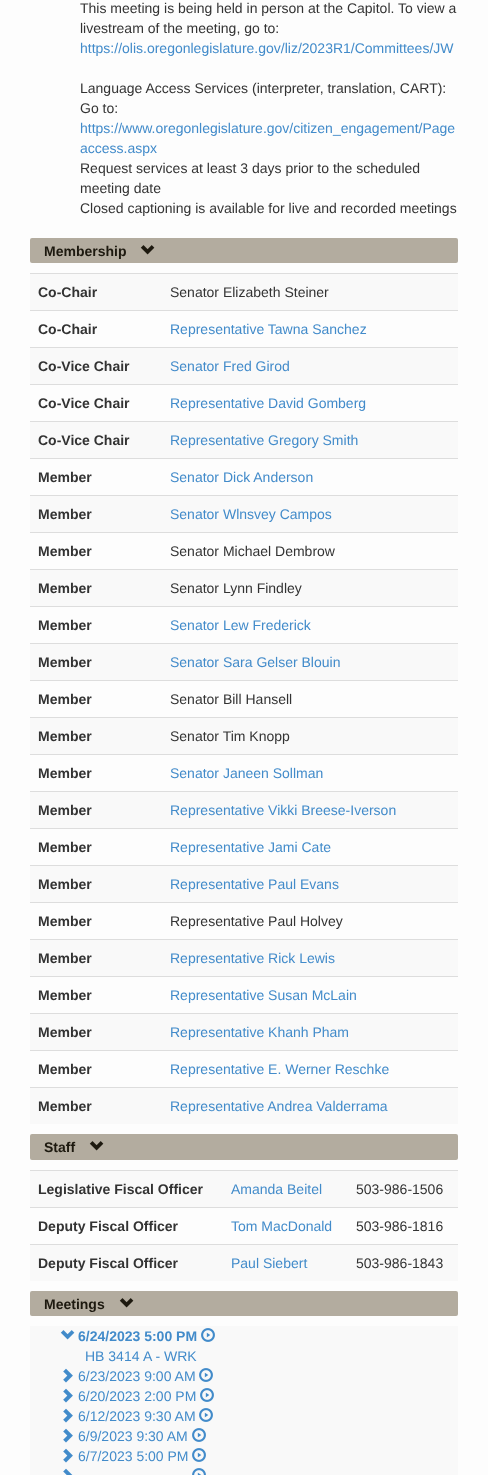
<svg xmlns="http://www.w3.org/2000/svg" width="488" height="1475">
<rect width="100%" height="100%" fill="#fdfdfd"/>
<text x="80" y="13" style="font-family:Liberation Sans;font-size:14px;fill:#333">This meeting is being held in person at the Capitol. To view a</text>
<text x="80" y="33" style="font-family:Liberation Sans;font-size:14px;fill:#333">livestream of the meeting, go to:</text>
<text x="80" y="53" style="font-family:Liberation Sans;font-size:14px;fill:#428bca">https://olis.oregonlegislature.gov/liz/2023R1/Committees/JW</text>
<text x="80" y="93" style="font-family:Liberation Sans;font-size:14px;fill:#333">Language Access Services (interpreter, translation, CART):</text>
<text x="80" y="113" style="font-family:Liberation Sans;font-size:14px;fill:#333">Go to:</text>
<text x="80" y="133" style="font-family:Liberation Sans;font-size:14px;fill:#428bca">https://www.oregonlegislature.gov/citizen_engagement/Page</text>
<text x="80" y="153" style="font-family:Liberation Sans;font-size:14px;fill:#428bca">access.aspx</text>
<text x="80" y="173" style="font-family:Liberation Sans;font-size:14px;fill:#333">Request services at least 3 days prior to the scheduled</text>
<text x="80" y="193" style="font-family:Liberation Sans;font-size:14px;fill:#333">meeting date</text>
<text x="80" y="213" style="font-family:Liberation Sans;font-size:14px;fill:#333">Closed captioning is available for live and recorded meetings</text>
<rect x="30" y="238" width="428" height="25" rx="2" fill="#b3ac9f"/>
<text x="44" y="256" style="font-family:Liberation Sans;font-size:14px;font-weight:bold;fill:#1d190f">Membership</text>
<image x="140" y="245" width="15" height="10" href="media/1.png"/>
<rect x="30" y="274" width="428" height="36" fill="#f9f9f9"/>
<text x="38" y="297" style="font-family:Liberation Sans;font-size:14px;font-weight:bold;fill:#333">Co-Chair</text>
<rect x="30" y="273" width="428" height="1" fill="#ddd"/>
<text x="170" y="297" style="font-family:Liberation Sans;font-size:14px;fill:#333">Senator Elizabeth Steiner</text>
<text x="38" y="334" style="font-family:Liberation Sans;font-size:14px;font-weight:bold;fill:#333">Co-Chair</text>
<rect x="30" y="310" width="428" height="1" fill="#ddd"/>
<text x="170" y="334" style="font-family:Liberation Sans;font-size:14px;fill:#428bca">Representative Tawna Sanchez</text>
<rect x="30" y="348" width="428" height="36" fill="#f9f9f9"/>
<text x="38" y="371" style="font-family:Liberation Sans;font-size:14px;font-weight:bold;fill:#333">Co-Vice Chair</text>
<rect x="30" y="347" width="428" height="1" fill="#ddd"/>
<text x="170" y="371" style="font-family:Liberation Sans;font-size:14px;fill:#428bca">Senator Fred Girod</text>
<text x="38" y="408" style="font-family:Liberation Sans;font-size:14px;font-weight:bold;fill:#333">Co-Vice Chair</text>
<rect x="30" y="384" width="428" height="1" fill="#ddd"/>
<text x="170" y="408" style="font-family:Liberation Sans;font-size:14px;fill:#428bca">Representative David Gomberg</text>
<rect x="30" y="422" width="428" height="36" fill="#f9f9f9"/>
<text x="38" y="445" style="font-family:Liberation Sans;font-size:14px;font-weight:bold;fill:#333">Co-Vice Chair</text>
<rect x="30" y="421" width="428" height="1" fill="#ddd"/>
<text x="170" y="445" style="font-family:Liberation Sans;font-size:14px;fill:#428bca">Representative Gregory Smith</text>
<text x="38" y="482" style="font-family:Liberation Sans;font-size:14px;font-weight:bold;fill:#333">Member</text>
<rect x="30" y="458" width="428" height="1" fill="#ddd"/>
<text x="170" y="482" style="font-family:Liberation Sans;font-size:14px;fill:#428bca">Senator Dick Anderson</text>
<rect x="30" y="496" width="428" height="36" fill="#f9f9f9"/>
<text x="38" y="519" style="font-family:Liberation Sans;font-size:14px;font-weight:bold;fill:#333">Member</text>
<rect x="30" y="495" width="428" height="1" fill="#ddd"/>
<text x="170" y="519" style="font-family:Liberation Sans;font-size:14px;fill:#428bca">Senator Wlnsvey Campos</text>
<text x="38" y="556" style="font-family:Liberation Sans;font-size:14px;font-weight:bold;fill:#333">Member</text>
<rect x="30" y="532" width="428" height="1" fill="#ddd"/>
<text x="170" y="556" style="font-family:Liberation Sans;font-size:14px;fill:#333">Senator Michael Dembrow</text>
<rect x="30" y="570" width="428" height="36" fill="#f9f9f9"/>
<text x="38" y="593" style="font-family:Liberation Sans;font-size:14px;font-weight:bold;fill:#333">Member</text>
<rect x="30" y="569" width="428" height="1" fill="#ddd"/>
<text x="170" y="593" style="font-family:Liberation Sans;font-size:14px;fill:#333">Senator Lynn Findley</text>
<text x="38" y="630" style="font-family:Liberation Sans;font-size:14px;font-weight:bold;fill:#333">Member</text>
<rect x="30" y="606" width="428" height="1" fill="#ddd"/>
<text x="170" y="630" style="font-family:Liberation Sans;font-size:14px;fill:#428bca">Senator Lew Frederick</text>
<rect x="30" y="644" width="428" height="36" fill="#f9f9f9"/>
<text x="38" y="667" style="font-family:Liberation Sans;font-size:14px;font-weight:bold;fill:#333">Member</text>
<rect x="30" y="643" width="428" height="1" fill="#ddd"/>
<text x="170" y="667" style="font-family:Liberation Sans;font-size:14px;fill:#428bca">Senator Sara Gelser Blouin</text>
<text x="38" y="704" style="font-family:Liberation Sans;font-size:14px;font-weight:bold;fill:#333">Member</text>
<rect x="30" y="680" width="428" height="1" fill="#ddd"/>
<text x="170" y="704" style="font-family:Liberation Sans;font-size:14px;fill:#333">Senator Bill Hansell</text>
<rect x="30" y="718" width="428" height="36" fill="#f9f9f9"/>
<text x="38" y="741" style="font-family:Liberation Sans;font-size:14px;font-weight:bold;fill:#333">Member</text>
<rect x="30" y="717" width="428" height="1" fill="#ddd"/>
<text x="170" y="741" style="font-family:Liberation Sans;font-size:14px;fill:#333">Senator Tim Knopp</text>
<text x="38" y="778" style="font-family:Liberation Sans;font-size:14px;font-weight:bold;fill:#333">Member</text>
<rect x="30" y="754" width="428" height="1" fill="#ddd"/>
<text x="170" y="778" style="font-family:Liberation Sans;font-size:14px;fill:#428bca">Senator Janeen Sollman</text>
<rect x="30" y="792" width="428" height="36" fill="#f9f9f9"/>
<text x="38" y="815" style="font-family:Liberation Sans;font-size:14px;font-weight:bold;fill:#333">Member</text>
<rect x="30" y="791" width="428" height="1" fill="#ddd"/>
<text x="170" y="815" style="font-family:Liberation Sans;font-size:14px;fill:#428bca">Representative Vikki Breese-Iverson</text>
<text x="38" y="852" style="font-family:Liberation Sans;font-size:14px;font-weight:bold;fill:#333">Member</text>
<rect x="30" y="828" width="428" height="1" fill="#ddd"/>
<text x="170" y="852" style="font-family:Liberation Sans;font-size:14px;fill:#428bca">Representative Jami Cate</text>
<rect x="30" y="866" width="428" height="36" fill="#f9f9f9"/>
<text x="38" y="889" style="font-family:Liberation Sans;font-size:14px;font-weight:bold;fill:#333">Member</text>
<rect x="30" y="865" width="428" height="1" fill="#ddd"/>
<text x="170" y="889" style="font-family:Liberation Sans;font-size:14px;fill:#428bca">Representative Paul Evans</text>
<text x="38" y="926" style="font-family:Liberation Sans;font-size:14px;font-weight:bold;fill:#333">Member</text>
<rect x="30" y="902" width="428" height="1" fill="#ddd"/>
<text x="170" y="926" style="font-family:Liberation Sans;font-size:14px;fill:#333">Representative Paul Holvey</text>
<rect x="30" y="940" width="428" height="36" fill="#f9f9f9"/>
<text x="38" y="963" style="font-family:Liberation Sans;font-size:14px;font-weight:bold;fill:#333">Member</text>
<rect x="30" y="939" width="428" height="1" fill="#ddd"/>
<text x="170" y="963" style="font-family:Liberation Sans;font-size:14px;fill:#428bca">Representative Rick Lewis</text>
<text x="38" y="1000" style="font-family:Liberation Sans;font-size:14px;font-weight:bold;fill:#333">Member</text>
<rect x="30" y="976" width="428" height="1" fill="#ddd"/>
<text x="170" y="1000" style="font-family:Liberation Sans;font-size:14px;fill:#428bca">Representative Susan McLain</text>
<rect x="30" y="1014" width="428" height="36" fill="#f9f9f9"/>
<text x="38" y="1037" style="font-family:Liberation Sans;font-size:14px;font-weight:bold;fill:#333">Member</text>
<rect x="30" y="1013" width="428" height="1" fill="#ddd"/>
<text x="170" y="1037" style="font-family:Liberation Sans;font-size:14px;fill:#428bca">Representative Khanh Pham</text>
<text x="38" y="1074" style="font-family:Liberation Sans;font-size:14px;font-weight:bold;fill:#333">Member</text>
<rect x="30" y="1050" width="428" height="1" fill="#ddd"/>
<text x="170" y="1074" style="font-family:Liberation Sans;font-size:14px;fill:#428bca">Representative E. Werner Reschke</text>
<rect x="30" y="1088" width="428" height="36" fill="#f9f9f9"/>
<text x="38" y="1111" style="font-family:Liberation Sans;font-size:14px;font-weight:bold;fill:#333">Member</text>
<rect x="30" y="1087" width="428" height="1" fill="#ddd"/>
<text x="170" y="1111" style="font-family:Liberation Sans;font-size:14px;fill:#428bca">Representative Andrea Valderrama</text>
<rect x="30" y="1134" width="428" height="26" rx="2" fill="#b3ac9f"/>
<text x="44" y="1152" style="font-family:Liberation Sans;font-size:14px;font-weight:bold;fill:#1d190f">Staff</text>
<image x="89" y="1141" width="15" height="10" href="media/1.png"/>
<rect x="30" y="1171" width="428" height="36" fill="#f9f9f9"/>
<text x="38" y="1194" style="font-family:Liberation Sans;font-size:14px;font-weight:bold;fill:#333">Legislative Fiscal Officer</text>
<text x="231" y="1194" style="font-family:Liberation Sans;font-size:14px;fill:#428bca">Amanda Beitel</text>
<rect x="30" y="1170" width="428" height="1" fill="#ddd"/>
<text x="356" y="1194" style="font-family:Liberation Sans;font-size:14px;fill:#333">503-986-1506</text>
<text x="38" y="1231" style="font-family:Liberation Sans;font-size:14px;font-weight:bold;fill:#333">Deputy Fiscal Officer</text>
<text x="231" y="1231" style="font-family:Liberation Sans;font-size:14px;fill:#428bca">Tom MacDonald</text>
<rect x="30" y="1207" width="428" height="1" fill="#ddd"/>
<text x="356" y="1231" style="font-family:Liberation Sans;font-size:14px;fill:#333">503-986-1816</text>
<rect x="30" y="1245" width="428" height="36" fill="#f9f9f9"/>
<text x="38" y="1268" style="font-family:Liberation Sans;font-size:14px;font-weight:bold;fill:#333">Deputy Fiscal Officer</text>
<text x="231" y="1268" style="font-family:Liberation Sans;font-size:14px;fill:#428bca">Paul Siebert</text>
<rect x="30" y="1244" width="428" height="1" fill="#ddd"/>
<text x="356" y="1268" style="font-family:Liberation Sans;font-size:14px;fill:#333">503-986-1843</text>
<rect x="30" y="1291" width="428" height="25" rx="2" fill="#b3ac9f"/>
<text x="44" y="1309" style="font-family:Liberation Sans;font-size:14px;font-weight:bold;fill:#1d190f">Meetings</text>
<image x="119" y="1298" width="15" height="10" href="media/1.png"/>
<rect x="30" y="1326" width="428" height="149" fill="#f9f9f9"/>
<image x="60" y="1330" width="15" height="10" href="media/2.png"/>
<text x="78" y="1341" style="font-family:Liberation Sans;font-size:14px;font-weight:bold;fill:#428bca">6/24/2023 5:00 PM</text>
<image x="201" y="1328" width="14" height="14" href="media/3.png"/>
<text x="85" y="1361" style="font-family:Liberation Sans;font-size:14px;fill:#428bca">HB 3414</text>
<text x="143" y="1361" style="font-family:Liberation Sans;font-size:14px;fill:#428bca">A - WRK</text>
<image x="63" y="1368" width="10" height="15" href="media/4.png"/>
<text x="78" y="1381" style="font-family:Liberation Sans;font-size:14px;fill:#428bca">6/23/2023 9:00 AM</text>
<image x="199" y="1368" width="14" height="14" href="media/3.png"/>
<image x="63" y="1388" width="10" height="15" href="media/4.png"/>
<text x="78" y="1401" style="font-family:Liberation Sans;font-size:14px;fill:#428bca">6/20/2023 2:00 PM</text>
<image x="200" y="1388" width="14" height="14" href="media/3.png"/>
<image x="63" y="1408" width="10" height="15" href="media/4.png"/>
<text x="78" y="1421" style="font-family:Liberation Sans;font-size:14px;fill:#428bca">6/12/2023 9:30 AM</text>
<image x="199" y="1408" width="14" height="14" href="media/3.png"/>
<image x="63" y="1428" width="10" height="15" href="media/4.png"/>
<text x="78" y="1441" style="font-family:Liberation Sans;font-size:14px;fill:#428bca">6/9/2023 9:30 AM</text>
<image x="192" y="1428" width="14" height="14" href="media/3.png"/>
<image x="63" y="1448" width="10" height="15" href="media/4.png"/>
<text x="78" y="1461" style="font-family:Liberation Sans;font-size:14px;fill:#428bca">6/7/2023 5:00 PM</text>
<image x="192" y="1448" width="14" height="14" href="media/3.png"/>
<image x="63" y="1468" width="10" height="7" href="media/5.png"/>
<image x="192" y="1468" width="14" height="7" href="media/6.png"/>
</svg>
